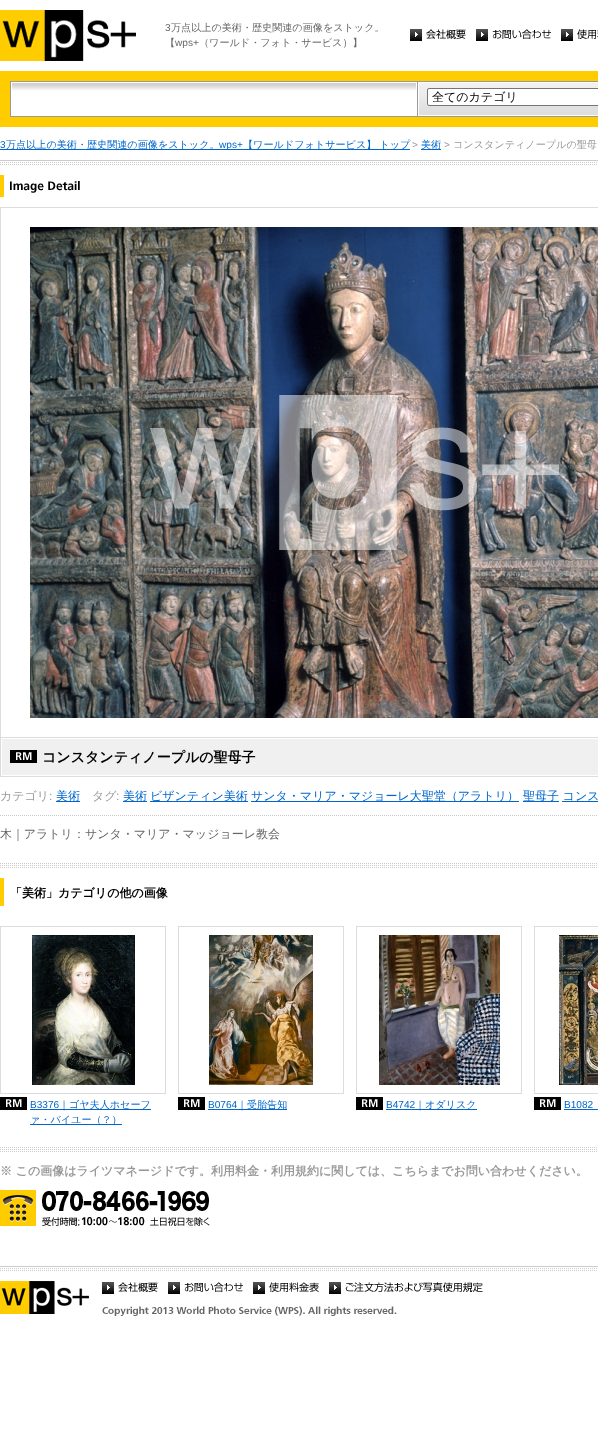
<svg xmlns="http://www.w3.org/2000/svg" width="598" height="1435">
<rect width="100%" height="100%" fill="#fff"/>
<image x="0" y="10" width="136" height="51" href="media/1.png"/>
<text x="165" y="31" style="font-family:Liberation Sans;font-size:10.1px;fill:#666">3</text>
<text x="171" y="31" style="font-family:WenQuanYi Zen Hei;font-size:10.1px;font-weight:500;fill:#666">万点以上の美術・歴史関連の画像をストック。</text>
<text x="165" y="46" style="font-family:WenQuanYi Zen Hei;font-size:10.1px;font-weight:500;fill:#666">【</text>
<text x="175" y="46" style="font-family:Liberation Sans;font-size:10.1px;fill:#666">wps+</text>
<text x="199" y="46" style="font-family:WenQuanYi Zen Hei;font-size:10.1px;font-weight:500;fill:#666">（ワールド・フォト・サービス）】</text>
<image x="410" y="29" width="56" height="12" href="media/2.png"/>
<image x="476" y="29" width="75" height="12" href="media/3.png"/>
<image x="561" y="29" width="37" height="12" href="media/4.png"/>
<rect y="71" width="598" height="56" fill="#fc0"/>
<image x="10" y="81" width="407" height="36" href="media/5.png"/>
<image x="417" y="81" width="181" height="36" href="media/6.png"/>
<rect x="427.5" y="88.5" width="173" height="17" rx="1.5" fill="#fff" stroke="#767676"/>
<text x="432" y="101" style="font-family:WenQuanYi Zen Hei;font-size:12px;font-weight:500;fill:#000">全てのカテゴリ</text>
<text x="0" y="148" style="font-family:Liberation Sans;font-size:10.1px;fill:#06c">3</text>
<rect y="149" width="410" height="1" fill="#06c"/>
<text x="6" y="148" style="font-family:WenQuanYi Zen Hei;font-size:10.1px;font-weight:500;fill:#06c">万点以上の美術・歴史関連の画像をストック。</text>
<text x="219" y="148" style="font-family:Liberation Sans;font-size:10.1px;fill:#06c">wps+</text>
<text x="243" y="148" style="font-family:WenQuanYi Zen Hei;font-size:10.1px;font-weight:500;fill:#06c">【ワールドフォトサービス】 トップ</text>
<text x="412" y="148" style="font-family:Liberation Sans;font-size:10.1px;fill:#999">&gt;</text>
<rect x="421" y="149" width="20" height="1" fill="#06c"/>
<text x="421" y="148" style="font-family:WenQuanYi Zen Hei;font-size:10.1px;font-weight:500;fill:#06c">美術</text>
<text x="444" y="148" style="font-family:Liberation Sans;font-size:10.1px;fill:#999">&gt;</text>
<text x="453" y="148" style="font-family:WenQuanYi Zen Hei;font-size:10.1px;font-weight:500;fill:#999">コンスタンティノープルの聖母</text>
<image x="0" y="160" width="598" height="5" href="media/7.png"/>
<rect y="175" width="4" height="22" fill="#fc0"/>
<image x="10" y="181" width="70" height="12" href="media/8.png"/>
<rect y="207" width="598" height="1" fill="#dcdcdc"/>
<rect y="207" width="1" height="531" fill="#dcdcdc"/>
<image x="30" y="227" width="568" height="491" href="media/9.png"/>
<image x="0" y="737" width="598" height="40" href="media/10.png"/>
<image x="1" y="737" width="597" height="2" href="media/11.png"/>
<image x="10" y="750" width="27" height="13" href="media/12.png"/>
<text x="42" y="762" style="font-family:WenQuanYi Zen Hei;font-size:14px;font-weight:bold;fill:#000">コンスタンティノープルの聖母子</text>
<text x="0" y="800" style="font-family:WenQuanYi Zen Hei;font-size:12px;font-weight:500;fill:#999">カテゴリ</text>
<text x="49" y="800" style="font-family:Liberation Sans;font-size:12px;fill:#999">:</text>
<rect x="56" y="801" width="24" height="1" fill="#06c"/>
<text x="56" y="800" style="font-family:WenQuanYi Zen Hei;font-size:12px;font-weight:500;fill:#06c">美術</text>
<text x="92" y="800" style="font-family:WenQuanYi Zen Hei;font-size:12px;font-weight:500;fill:#999">タグ</text>
<text x="116" y="800" style="font-family:Liberation Sans;font-size:12px;fill:#999">:</text>
<rect x="123" y="801" width="24" height="1" fill="#06c"/>
<text x="123" y="800" style="font-family:WenQuanYi Zen Hei;font-size:12px;font-weight:500;fill:#06c">美術</text>
<rect x="150" y="801" width="98" height="1" fill="#06c"/>
<text x="150" y="800" style="font-family:WenQuanYi Zen Hei;font-size:12px;font-weight:500;fill:#06c">ビザンティン美術</text>
<rect x="251" y="801" width="268" height="1" fill="#06c"/>
<text x="251" y="800" style="font-family:WenQuanYi Zen Hei;font-size:12px;font-weight:500;fill:#06c">サンタ・マリア・マジョーレ大聖堂（アラトリ）</text>
<rect x="523" y="801" width="36" height="1" fill="#06c"/>
<text x="523" y="800" style="font-family:WenQuanYi Zen Hei;font-size:12px;font-weight:500;fill:#06c">聖母子 コンス</text>
<rect x="562" y="801" width="36" height="1" fill="#06c"/>
<image x="0" y="815" width="597" height="1" href="media/13.png"/>
<text x="0" y="838" style="font-family:WenQuanYi Zen Hei;font-size:12px;font-weight:500;fill:#666">木｜アラトリ：サンタ・マリア・マッジョーレ教会</text>
<image x="0" y="863" width="597" height="5" href="media/14.png"/>
<rect y="878" width="4" height="28" fill="#fc0"/>
<text x="10" y="897" style="font-family:WenQuanYi Zen Hei;font-size:12px;font-weight:bold;fill:#000">「美術」カテゴリの他の画像</text>
<rect y="926" width="166" height="1" fill="#dcdcdc"/>
<rect x="165" y="926" width="1" height="168" fill="#dcdcdc"/>
<rect y="1093" width="166" height="1" fill="#dcdcdc"/>
<rect y="926" width="1" height="168" fill="#dcdcdc"/>
<image x="32" y="935" width="103" height="150" href="media/15.png"/>
<image x="0" y="1097" width="27" height="13" href="media/12.png"/>
<text x="30" y="1108" style="font-family:Liberation Sans;font-size:10.1px;fill:#06c">B3376</text>
<rect x="30" y="1109" width="121" height="1" fill="#06c"/>
<text x="59" y="1108" style="font-family:WenQuanYi Zen Hei;font-size:10.1px;font-weight:500;fill:#06c">｜ゴヤ夫人ホセーフ</text>
<rect x="30" y="1124" width="92" height="1" fill="#06c"/>
<text x="30" y="1123" style="font-family:WenQuanYi Zen Hei;font-size:10.1px;font-weight:500;fill:#06c">ァ・バイユー（？）</text>
<rect x="178" y="926" width="166" height="1" fill="#dcdcdc"/>
<rect x="343" y="926" width="1" height="168" fill="#dcdcdc"/>
<rect x="178" y="1093" width="166" height="1" fill="#dcdcdc"/>
<rect x="178" y="926" width="1" height="168" fill="#dcdcdc"/>
<image x="209" y="935" width="104" height="150" href="media/16.png"/>
<image x="178" y="1097" width="27" height="13" href="media/12.png"/>
<text x="208" y="1108" style="font-family:Liberation Sans;font-size:10.1px;fill:#06c">B0764</text>
<rect x="208" y="1109" width="79" height="1" fill="#06c"/>
<text x="237" y="1108" style="font-family:WenQuanYi Zen Hei;font-size:10.1px;font-weight:500;fill:#06c">｜受胎告知</text>
<rect x="356" y="926" width="166" height="1" fill="#dcdcdc"/>
<rect x="521" y="926" width="1" height="168" fill="#dcdcdc"/>
<rect x="356" y="1093" width="166" height="1" fill="#dcdcdc"/>
<rect x="356" y="926" width="1" height="168" fill="#dcdcdc"/>
<image x="379" y="935" width="121" height="150" href="media/17.png"/>
<image x="356" y="1097" width="27" height="13" href="media/12.png"/>
<text x="386" y="1108" style="font-family:Liberation Sans;font-size:10.1px;fill:#06c">B4742</text>
<rect x="386" y="1109" width="91" height="1" fill="#06c"/>
<text x="415" y="1108" style="font-family:WenQuanYi Zen Hei;font-size:10.1px;font-weight:500;fill:#06c">｜オダリスク</text>
<rect x="534" y="926" width="64" height="1" fill="#dcdcdc"/>
<rect x="534" y="1093" width="64" height="1" fill="#dcdcdc"/>
<rect x="534" y="926" width="1" height="168" fill="#dcdcdc"/>
<image x="559" y="935" width="39" height="150" href="media/18.png"/>
<image x="534" y="1097" width="27" height="13" href="media/12.png"/>
<text x="564" y="1108" style="font-family:Liberation Sans;font-size:10.1px;fill:#06c">B1082</text>
<rect x="564" y="1109" width="34" height="1" fill="#06c"/>
<image x="0" y="1147" width="597" height="5" href="media/14.png"/>
<text x="0" y="1175" style="font-family:WenQuanYi Zen Hei;font-size:12px;font-weight:bold;fill:#999">※ この画像はライツマネージドです。利用料金・利用規約に関しては、こちらまでお問い合わせください。</text>
<image x="0" y="1190" width="210" height="36" href="media/19.png"/>
<image x="0" y="1266" width="598" height="5" href="media/7.png"/>
<image x="0" y="1281" width="89" height="33" href="media/20.png"/>
<image x="102" y="1282" width="56" height="12" href="media/2.png"/>
<image x="168" y="1282" width="75" height="12" href="media/3.png"/>
<image x="253" y="1282" width="66" height="12" href="media/21.png"/>
<image x="329" y="1282" width="154" height="12" href="media/22.png"/>
<image x="102" y="1306" width="295" height="10" href="media/23.png"/>
</svg>
